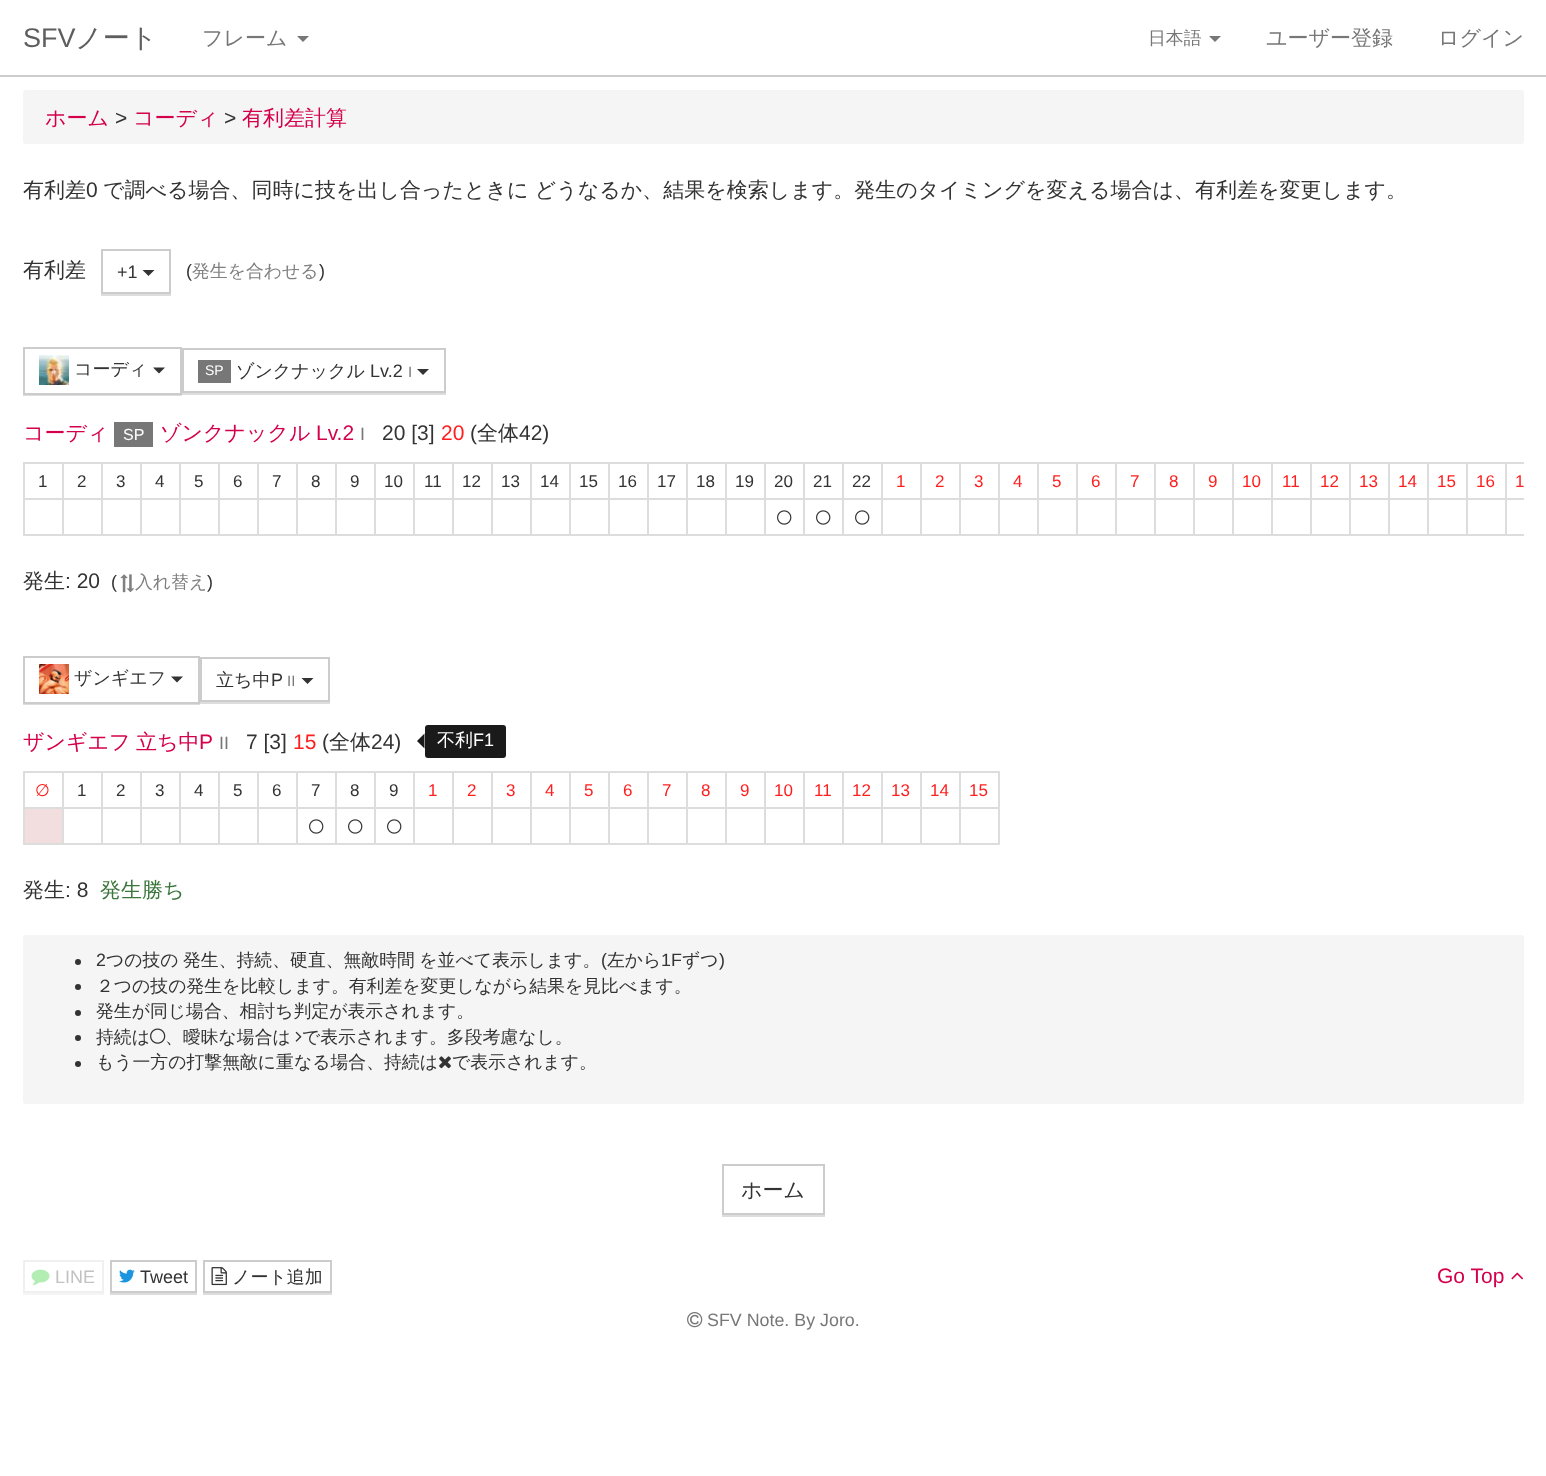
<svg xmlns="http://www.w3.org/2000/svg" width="1546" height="1476">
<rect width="100%" height="100%" fill="#fff"/>
<rect y="75" width="1546" height="2" fill="#ccc"/>
<text x="23" y="47" style="font-family:Liberation Sans;font-size:27px;fill:#5e5e5e">SFV</text>
<text x="75" y="47" style="font-family:WenQuanYi Zen Hei;font-size:27px;font-weight:500;fill:#5e5e5e">ノート</text>
<text x="202" y="45" style="font-family:WenQuanYi Zen Hei;font-size:21px;font-weight:500;fill:#777">フレーム</text>
<path d="M297 36h12l-6 6z" fill="#777"/>
<text x="1148" y="44" style="font-family:WenQuanYi Zen Hei;font-size:17.85px;font-weight:500;fill:#777">日本語</text>
<path d="M1209 36h12l-6 6z" fill="#777"/>
<text x="1266" y="45" style="font-family:WenQuanYi Zen Hei;font-size:21px;font-weight:500;fill:#777">ユーザー登録</text>
<text x="1438" y="45" style="font-family:WenQuanYi Zen Hei;font-size:21px;font-weight:500;fill:#777">ログイン</text>
<rect x="23" y="90" width="1501" height="54" rx="3" fill="#f5f5f5"/>
<text x="45" y="125" style="font-family:WenQuanYi Zen Hei;font-size:21px;font-weight:500;fill:#d4004b">ホーム</text>
<text x="115" y="125" style="font-family:Liberation Sans;font-size:21px;fill:#333">&gt;</text>
<text x="133" y="125" style="font-family:WenQuanYi Zen Hei;font-size:21px;font-weight:500;fill:#d4004b">コーディ</text>
<text x="224" y="125" style="font-family:Liberation Sans;font-size:21px;fill:#333">&gt;</text>
<text x="242" y="125" style="font-family:WenQuanYi Zen Hei;font-size:21px;font-weight:500;fill:#d4004b">有利差計算</text>
<text x="23" y="197" style="font-family:WenQuanYi Zen Hei;font-size:21px;font-weight:500;fill:#333">有利差</text>
<text x="86" y="197" style="font-family:Liberation Sans;font-size:21px;fill:#333">0</text>
<text x="103" y="197" style="font-family:WenQuanYi Zen Hei;font-size:21px;font-weight:500;fill:#333">で調べる場合、同時に技を出し合ったときに どうなるか、結果を検索します。発生のタイミングを変える場合は、有利差を変更します。</text>
<text x="23" y="277" style="font-family:WenQuanYi Zen Hei;font-size:21px;font-weight:500;fill:#333">有利差</text>
<rect x="101" y="294" width="70" height="2" fill="#ddd"/>
<rect x="102" y="250" width="68" height="43" fill="none" stroke="#ccc" stroke-width="2"/>
<text x="117" y="278" style="font-family:Liberation Sans;font-size:18px;fill:#333">+1</text>
<path d="M142.5 270h12l-6 6z" fill="#333"/>
<text x="186" y="277" style="font-family:Liberation Sans;font-size:17.85px;fill:#333">(</text>
<text x="192" y="277" style="font-family:WenQuanYi Zen Hei;font-size:17.85px;font-weight:500;fill:#808080">発生を合わせる</text>
<text x="319" y="277" style="font-family:Liberation Sans;font-size:17.85px;fill:#333">)</text>
<path d="M23 394v2h159v-48v46z" fill="#ddd"/>
<rect x="24" y="348" width="157" height="46" fill="none" stroke="#ccc" stroke-width="2"/>
<image x="39" y="355" width="30" height="30" href="media/1.png"/>
<text x="74" y="375" style="font-family:WenQuanYi Zen Hei;font-size:18px;font-weight:500;fill:#333">コーディ</text>
<path d="M153 367.5h12l-6 6z" fill="#333"/>
<path d="M182 393v2h264v-45v43z" fill="#ddd"/>
<rect x="183" y="349" width="262" height="43" fill="none" stroke="#ccc" stroke-width="2"/>
<rect x="198" y="360" width="33" height="23" fill="#777"/>
<text x="205" y="375" style="font-family:Liberation Sans;font-size:14px;fill:#fff">SP</text>
<text x="236" y="377" style="font-family:WenQuanYi Zen Hei;font-size:18px;font-weight:500;fill:#333">ゾンクナックル</text>
<text x="370" y="377" style="font-family:Liberation Sans;font-size:18px;fill:#333">Lv.2</text>
<text x="408" y="377" style="font-family:Liberation Sans;font-size:15px;fill:#777">I</text>
<path d="M417 369h12l-6 6z" fill="#333"/>
<text x="23" y="440" style="font-family:WenQuanYi Zen Hei;font-size:21px;font-weight:500;fill:#d4004b">コーディ</text>
<rect x="114" y="422" width="39" height="25" fill="#777"/>
<text x="123" y="440" style="font-family:Liberation Sans;font-size:16px;fill:#fff">SP</text>
<text x="160" y="440" style="font-family:WenQuanYi Zen Hei;font-size:21px;font-weight:500;fill:#d4004b">ゾンクナックル</text>
<text x="316" y="440" style="font-family:Liberation Sans;font-size:21px;fill:#d4004b">Lv.2</text>
<text x="360" y="440" style="font-family:Liberation Sans;font-size:17.85px;fill:#777">I</text>
<text x="382" y="440" style="font-family:Liberation Sans;font-size:21px;fill:#333">20 [3]</text>
<text x="441" y="440" style="font-family:Liberation Sans;font-size:21px;fill:#ff1e1e">20</text>
<text x="470" y="440" style="font-family:Liberation Sans;font-size:21px;fill:#333">(</text>
<text x="477" y="440" style="font-family:WenQuanYi Zen Hei;font-size:21px;font-weight:500;fill:#333">全体</text>
<text x="519" y="440" style="font-family:Liberation Sans;font-size:21px;fill:#333">42)</text>
<rect x="23" y="462" width="1501" height="2" fill="#ddd"/>
<rect x="23" y="534" width="1501" height="2" fill="#ddd"/>
<rect x="23" y="462" width="2" height="74" fill="#ddd"/>
<text x="38" y="487" style="font-family:Liberation Sans;font-size:17px;fill:#333">1</text>
<rect x="1505" y="498" width="19" height="2" fill="#ddd"/>
<rect x="1505" y="498" width="2" height="38" fill="#ddd"/>
<rect x="1466" y="498" width="40" height="2" fill="#ddd"/>
<rect x="1466" y="498" width="2" height="38" fill="#ddd"/>
<rect x="1427" y="498" width="40" height="2" fill="#ddd"/>
<rect x="1427" y="498" width="2" height="38" fill="#ddd"/>
<rect x="1388" y="498" width="40" height="2" fill="#ddd"/>
<rect x="1388" y="498" width="2" height="38" fill="#ddd"/>
<rect x="1349" y="498" width="40" height="2" fill="#ddd"/>
<rect x="1349" y="498" width="2" height="38" fill="#ddd"/>
<rect x="1310" y="498" width="40" height="2" fill="#ddd"/>
<rect x="1310" y="498" width="2" height="38" fill="#ddd"/>
<rect x="1271" y="498" width="40" height="2" fill="#ddd"/>
<rect x="1271" y="498" width="2" height="38" fill="#ddd"/>
<rect x="1232" y="498" width="40" height="2" fill="#ddd"/>
<rect x="1232" y="498" width="2" height="38" fill="#ddd"/>
<rect x="1193" y="498" width="40" height="2" fill="#ddd"/>
<rect x="1193" y="498" width="2" height="38" fill="#ddd"/>
<rect x="1154" y="498" width="40" height="2" fill="#ddd"/>
<rect x="1154" y="498" width="2" height="38" fill="#ddd"/>
<rect x="1115" y="498" width="40" height="2" fill="#ddd"/>
<rect x="1115" y="498" width="2" height="38" fill="#ddd"/>
<rect x="1076" y="498" width="40" height="2" fill="#ddd"/>
<rect x="1076" y="498" width="2" height="38" fill="#ddd"/>
<rect x="1037" y="498" width="40" height="2" fill="#ddd"/>
<rect x="1037" y="498" width="2" height="38" fill="#ddd"/>
<rect x="998" y="498" width="40" height="2" fill="#ddd"/>
<rect x="998" y="498" width="2" height="38" fill="#ddd"/>
<rect x="959" y="498" width="40" height="2" fill="#ddd"/>
<rect x="959" y="498" width="2" height="38" fill="#ddd"/>
<rect x="920" y="498" width="40" height="2" fill="#ddd"/>
<rect x="920" y="498" width="2" height="38" fill="#ddd"/>
<rect x="881" y="498" width="40" height="2" fill="#ddd"/>
<rect x="881" y="498" width="2" height="38" fill="#ddd"/>
<rect x="842" y="498" width="40" height="2" fill="#ddd"/>
<rect x="842" y="498" width="2" height="38" fill="#ddd"/>
<rect x="803" y="498" width="40" height="2" fill="#ddd"/>
<rect x="803" y="498" width="2" height="38" fill="#ddd"/>
<rect x="764" y="498" width="40" height="2" fill="#ddd"/>
<rect x="764" y="498" width="2" height="38" fill="#ddd"/>
<rect x="725" y="498" width="40" height="2" fill="#ddd"/>
<rect x="725" y="498" width="2" height="38" fill="#ddd"/>
<rect x="686" y="498" width="40" height="2" fill="#ddd"/>
<rect x="686" y="498" width="2" height="38" fill="#ddd"/>
<rect x="647" y="498" width="40" height="2" fill="#ddd"/>
<rect x="647" y="498" width="2" height="38" fill="#ddd"/>
<rect x="608" y="498" width="40" height="2" fill="#ddd"/>
<rect x="608" y="498" width="2" height="38" fill="#ddd"/>
<rect x="569" y="498" width="40" height="2" fill="#ddd"/>
<rect x="569" y="498" width="2" height="38" fill="#ddd"/>
<rect x="530" y="498" width="40" height="2" fill="#ddd"/>
<rect x="530" y="498" width="2" height="38" fill="#ddd"/>
<rect x="491" y="498" width="40" height="2" fill="#ddd"/>
<rect x="491" y="498" width="2" height="38" fill="#ddd"/>
<rect x="452" y="498" width="40" height="2" fill="#ddd"/>
<rect x="452" y="498" width="2" height="38" fill="#ddd"/>
<rect x="413" y="498" width="40" height="2" fill="#ddd"/>
<rect x="413" y="498" width="2" height="38" fill="#ddd"/>
<rect x="374" y="498" width="40" height="2" fill="#ddd"/>
<rect x="374" y="498" width="2" height="38" fill="#ddd"/>
<rect x="335" y="498" width="40" height="2" fill="#ddd"/>
<rect x="335" y="498" width="2" height="38" fill="#ddd"/>
<rect x="296" y="498" width="40" height="2" fill="#ddd"/>
<rect x="296" y="498" width="2" height="38" fill="#ddd"/>
<rect x="257" y="498" width="40" height="2" fill="#ddd"/>
<rect x="257" y="498" width="2" height="38" fill="#ddd"/>
<rect x="218" y="498" width="40" height="2" fill="#ddd"/>
<rect x="218" y="498" width="2" height="38" fill="#ddd"/>
<rect x="179" y="498" width="40" height="2" fill="#ddd"/>
<rect x="179" y="498" width="2" height="38" fill="#ddd"/>
<rect x="140" y="498" width="40" height="2" fill="#ddd"/>
<rect x="140" y="498" width="2" height="38" fill="#ddd"/>
<rect x="101" y="498" width="40" height="2" fill="#ddd"/>
<rect x="101" y="498" width="2" height="38" fill="#ddd"/>
<rect x="62" y="498" width="40" height="2" fill="#ddd"/>
<rect x="62" y="498" width="2" height="38" fill="#ddd"/>
<rect x="23" y="498" width="40" height="2" fill="#ddd"/>
<rect x="62" y="462" width="2" height="38" fill="#ddd"/>
<text x="77" y="487" style="font-family:Liberation Sans;font-size:17px;fill:#333">2</text>
<rect x="101" y="462" width="2" height="38" fill="#ddd"/>
<text x="116" y="487" style="font-family:Liberation Sans;font-size:17px;fill:#333">3</text>
<rect x="140" y="462" width="2" height="38" fill="#ddd"/>
<text x="155" y="487" style="font-family:Liberation Sans;font-size:17px;fill:#333">4</text>
<rect x="179" y="462" width="2" height="38" fill="#ddd"/>
<text x="194" y="487" style="font-family:Liberation Sans;font-size:17px;fill:#333">5</text>
<rect x="218" y="462" width="2" height="38" fill="#ddd"/>
<text x="233" y="487" style="font-family:Liberation Sans;font-size:17px;fill:#333">6</text>
<rect x="257" y="462" width="2" height="38" fill="#ddd"/>
<text x="272" y="487" style="font-family:Liberation Sans;font-size:17px;fill:#333">7</text>
<rect x="296" y="462" width="2" height="38" fill="#ddd"/>
<text x="311" y="487" style="font-family:Liberation Sans;font-size:17px;fill:#333">8</text>
<rect x="335" y="462" width="2" height="38" fill="#ddd"/>
<text x="350" y="487" style="font-family:Liberation Sans;font-size:17px;fill:#333">9</text>
<rect x="374" y="462" width="2" height="38" fill="#ddd"/>
<text x="384" y="487" style="font-family:Liberation Sans;font-size:17px;fill:#333">10</text>
<rect x="413" y="462" width="2" height="38" fill="#ddd"/>
<text x="424" y="487" style="font-family:Liberation Sans;font-size:17px;fill:#333">11</text>
<rect x="452" y="462" width="2" height="38" fill="#ddd"/>
<text x="462" y="487" style="font-family:Liberation Sans;font-size:17px;fill:#333">12</text>
<rect x="491" y="462" width="2" height="38" fill="#ddd"/>
<text x="501" y="487" style="font-family:Liberation Sans;font-size:17px;fill:#333">13</text>
<rect x="530" y="462" width="2" height="38" fill="#ddd"/>
<text x="540" y="487" style="font-family:Liberation Sans;font-size:17px;fill:#333">14</text>
<rect x="569" y="462" width="2" height="38" fill="#ddd"/>
<text x="579" y="487" style="font-family:Liberation Sans;font-size:17px;fill:#333">15</text>
<rect x="608" y="462" width="2" height="38" fill="#ddd"/>
<text x="618" y="487" style="font-family:Liberation Sans;font-size:17px;fill:#333">16</text>
<rect x="647" y="462" width="2" height="38" fill="#ddd"/>
<text x="657" y="487" style="font-family:Liberation Sans;font-size:17px;fill:#333">17</text>
<rect x="686" y="462" width="2" height="38" fill="#ddd"/>
<text x="696" y="487" style="font-family:Liberation Sans;font-size:17px;fill:#333">18</text>
<rect x="725" y="462" width="2" height="38" fill="#ddd"/>
<text x="735" y="487" style="font-family:Liberation Sans;font-size:17px;fill:#333">19</text>
<rect x="764" y="462" width="2" height="38" fill="#ddd"/>
<text x="774" y="487" style="font-family:Liberation Sans;font-size:17px;fill:#333">20</text>
<rect x="803" y="462" width="2" height="38" fill="#ddd"/>
<text x="813" y="487" style="font-family:Liberation Sans;font-size:17px;fill:#333">21</text>
<rect x="842" y="462" width="2" height="38" fill="#ddd"/>
<text x="852" y="487" style="font-family:Liberation Sans;font-size:17px;fill:#333">22</text>
<rect x="881" y="462" width="2" height="38" fill="#ddd"/>
<text x="896" y="487" style="font-family:Liberation Sans;font-size:17px;fill:#ff1e1e">1</text>
<rect x="920" y="462" width="2" height="38" fill="#ddd"/>
<text x="935" y="487" style="font-family:Liberation Sans;font-size:17px;fill:#ff1e1e">2</text>
<rect x="959" y="462" width="2" height="38" fill="#ddd"/>
<text x="974" y="487" style="font-family:Liberation Sans;font-size:17px;fill:#ff1e1e">3</text>
<rect x="998" y="462" width="2" height="38" fill="#ddd"/>
<text x="1013" y="487" style="font-family:Liberation Sans;font-size:17px;fill:#ff1e1e">4</text>
<rect x="1037" y="462" width="2" height="38" fill="#ddd"/>
<text x="1052" y="487" style="font-family:Liberation Sans;font-size:17px;fill:#ff1e1e">5</text>
<rect x="1076" y="462" width="2" height="38" fill="#ddd"/>
<text x="1091" y="487" style="font-family:Liberation Sans;font-size:17px;fill:#ff1e1e">6</text>
<rect x="1115" y="462" width="2" height="38" fill="#ddd"/>
<text x="1130" y="487" style="font-family:Liberation Sans;font-size:17px;fill:#ff1e1e">7</text>
<rect x="1154" y="462" width="2" height="38" fill="#ddd"/>
<text x="1169" y="487" style="font-family:Liberation Sans;font-size:17px;fill:#ff1e1e">8</text>
<rect x="1193" y="462" width="2" height="38" fill="#ddd"/>
<text x="1208" y="487" style="font-family:Liberation Sans;font-size:17px;fill:#ff1e1e">9</text>
<rect x="1232" y="462" width="2" height="38" fill="#ddd"/>
<text x="1242" y="487" style="font-family:Liberation Sans;font-size:17px;fill:#ff1e1e">10</text>
<rect x="1271" y="462" width="2" height="38" fill="#ddd"/>
<text x="1282" y="487" style="font-family:Liberation Sans;font-size:17px;fill:#ff1e1e">11</text>
<rect x="1310" y="462" width="2" height="38" fill="#ddd"/>
<text x="1320" y="487" style="font-family:Liberation Sans;font-size:17px;fill:#ff1e1e">12</text>
<rect x="1349" y="462" width="2" height="38" fill="#ddd"/>
<text x="1359" y="487" style="font-family:Liberation Sans;font-size:17px;fill:#ff1e1e">13</text>
<rect x="1388" y="462" width="2" height="38" fill="#ddd"/>
<text x="1398" y="487" style="font-family:Liberation Sans;font-size:17px;fill:#ff1e1e">14</text>
<rect x="1427" y="462" width="2" height="38" fill="#ddd"/>
<text x="1437" y="487" style="font-family:Liberation Sans;font-size:17px;fill:#ff1e1e">15</text>
<rect x="1466" y="462" width="2" height="38" fill="#ddd"/>
<text x="1476" y="487" style="font-family:Liberation Sans;font-size:17px;fill:#ff1e1e">16</text>
<rect x="1505" y="462" width="2" height="38" fill="#ddd"/>
<text x="1515" y="487" style="font-family:Liberation Sans;font-size:17px;fill:#ff1e1e">1</text>
<image x="777" y="510" width="15" height="15" href="media/2.png"/>
<image x="816" y="510" width="15" height="15" href="media/2.png"/>
<image x="855" y="510" width="15" height="15" href="media/2.png"/>
<text x="23" y="588" style="font-family:WenQuanYi Zen Hei;font-size:21px;font-weight:500;fill:#333">発生</text>
<text x="65" y="588" style="font-family:Liberation Sans;font-size:21px;fill:#333">: 20</text>
<text x="111" y="588" style="font-family:Liberation Sans;font-size:17.85px;fill:#333">(</text>
<image x="120" y="574" width="14" height="19" href="media/3.png"/>
<text x="135" y="588" style="font-family:WenQuanYi Zen Hei;font-size:17.85px;font-weight:500;fill:#808080">入れ替え</text>
<text x="207" y="588" style="font-family:Liberation Sans;font-size:17.85px;fill:#333">)</text>
<path d="M23 704v1h177v-48v47z" fill="#ddd"/>
<rect x="24" y="657" width="175" height="46" fill="none" stroke="#ccc" stroke-width="2"/>
<image x="39" y="664" width="30" height="30" href="media/4.png"/>
<text x="74" y="684" style="font-family:WenQuanYi Zen Hei;font-size:18px;font-weight:500;fill:#333">ザンギエフ</text>
<path d="M171 676.5h12l-6 6z" fill="#333"/>
<rect x="200" y="702" width="130" height="2" fill="#ddd"/>
<rect x="201" y="658" width="128" height="43" fill="none" stroke="#ccc" stroke-width="2"/>
<text x="216" y="686" style="font-family:WenQuanYi Zen Hei;font-size:18px;font-weight:500;fill:#333">立ち中</text>
<text x="271" y="686" style="font-family:Liberation Sans;font-size:18px;fill:#333">P</text>
<text x="287" y="686" style="font-family:Liberation Sans;font-size:15px;fill:#777">II</text>
<path d="M301.5 678h12l-6 6z" fill="#333"/>
<text x="23" y="749" style="font-family:WenQuanYi Zen Hei;font-size:21px;font-weight:500;fill:#d4004b">ザンギエフ</text>
<text x="136" y="749" style="font-family:WenQuanYi Zen Hei;font-size:21px;font-weight:500;fill:#d4004b">立ち中</text>
<text x="199" y="749" style="font-family:Liberation Sans;font-size:21px;fill:#d4004b">P</text>
<text x="219" y="749" style="font-family:Liberation Sans;font-size:17.85px;fill:#777">II</text>
<text x="246" y="749" style="font-family:Liberation Sans;font-size:21px;fill:#333">7 [3]</text>
<text x="293" y="749" style="font-family:Liberation Sans;font-size:21px;fill:#ff1e1e">15</text>
<text x="322" y="749" style="font-family:Liberation Sans;font-size:21px;fill:#333">(</text>
<text x="329" y="749" style="font-family:WenQuanYi Zen Hei;font-size:21px;font-weight:500;fill:#333">全体</text>
<text x="371" y="749" style="font-family:Liberation Sans;font-size:21px;fill:#333">24)</text>
<path d="M424.5 733.5v15l-7.5-7.5z" fill="#1a1a1a"/>
<rect x="425" y="725" width="81" height="33" rx="3" fill="#1a1a1a"/>
<text x="437" y="746" style="font-family:WenQuanYi Zen Hei;font-size:18px;font-weight:500;fill:#fff">不利</text>
<text x="473" y="746" style="font-family:Liberation Sans;font-size:18px;fill:#fff">F1</text>
<rect x="23" y="771" width="976" height="2" fill="#ddd"/>
<rect x="998" y="771" width="2" height="74" fill="#ddd"/>
<rect x="23" y="843" width="976" height="2" fill="#ddd"/>
<rect x="23" y="771" width="2" height="74" fill="#ddd"/>
<text x="35" y="796" style="font-family:DejaVu Sans;font-size:17px;fill:#ff1e1e">∅</text>
<rect x="959" y="807" width="40" height="2" fill="#ddd"/>
<rect x="959" y="807" width="2" height="38" fill="#ddd"/>
<rect x="920" y="807" width="40" height="2" fill="#ddd"/>
<rect x="920" y="807" width="2" height="38" fill="#ddd"/>
<rect x="881" y="807" width="40" height="2" fill="#ddd"/>
<rect x="881" y="807" width="2" height="38" fill="#ddd"/>
<rect x="842" y="807" width="40" height="2" fill="#ddd"/>
<rect x="842" y="807" width="2" height="38" fill="#ddd"/>
<rect x="803" y="807" width="40" height="2" fill="#ddd"/>
<rect x="803" y="807" width="2" height="38" fill="#ddd"/>
<rect x="764" y="807" width="40" height="2" fill="#ddd"/>
<rect x="764" y="807" width="2" height="38" fill="#ddd"/>
<rect x="725" y="807" width="40" height="2" fill="#ddd"/>
<rect x="725" y="807" width="2" height="38" fill="#ddd"/>
<rect x="686" y="807" width="40" height="2" fill="#ddd"/>
<rect x="686" y="807" width="2" height="38" fill="#ddd"/>
<rect x="647" y="807" width="40" height="2" fill="#ddd"/>
<rect x="647" y="807" width="2" height="38" fill="#ddd"/>
<rect x="608" y="807" width="40" height="2" fill="#ddd"/>
<rect x="608" y="807" width="2" height="38" fill="#ddd"/>
<rect x="569" y="807" width="40" height="2" fill="#ddd"/>
<rect x="569" y="807" width="2" height="38" fill="#ddd"/>
<rect x="530" y="807" width="40" height="2" fill="#ddd"/>
<rect x="530" y="807" width="2" height="38" fill="#ddd"/>
<rect x="491" y="807" width="40" height="2" fill="#ddd"/>
<rect x="491" y="807" width="2" height="38" fill="#ddd"/>
<rect x="452" y="807" width="40" height="2" fill="#ddd"/>
<rect x="452" y="807" width="2" height="38" fill="#ddd"/>
<rect x="413" y="807" width="40" height="2" fill="#ddd"/>
<rect x="413" y="807" width="2" height="38" fill="#ddd"/>
<rect x="374" y="807" width="40" height="2" fill="#ddd"/>
<rect x="374" y="807" width="2" height="38" fill="#ddd"/>
<rect x="335" y="807" width="40" height="2" fill="#ddd"/>
<rect x="335" y="807" width="2" height="38" fill="#ddd"/>
<rect x="296" y="807" width="40" height="2" fill="#ddd"/>
<rect x="296" y="807" width="2" height="38" fill="#ddd"/>
<rect x="257" y="807" width="40" height="2" fill="#ddd"/>
<rect x="257" y="807" width="2" height="38" fill="#ddd"/>
<rect x="218" y="807" width="40" height="2" fill="#ddd"/>
<rect x="218" y="807" width="2" height="38" fill="#ddd"/>
<rect x="179" y="807" width="40" height="2" fill="#ddd"/>
<rect x="179" y="807" width="2" height="38" fill="#ddd"/>
<rect x="140" y="807" width="40" height="2" fill="#ddd"/>
<rect x="140" y="807" width="2" height="38" fill="#ddd"/>
<rect x="101" y="807" width="40" height="2" fill="#ddd"/>
<rect x="101" y="807" width="2" height="38" fill="#ddd"/>
<rect x="62" y="807" width="40" height="2" fill="#ddd"/>
<rect x="62" y="807" width="2" height="38" fill="#ddd"/>
<rect x="23" y="807" width="40" height="2" fill="#ddd"/>
<rect x="62" y="771" width="2" height="38" fill="#ddd"/>
<text x="77" y="796" style="font-family:Liberation Sans;font-size:17px;fill:#333">1</text>
<rect x="101" y="771" width="2" height="38" fill="#ddd"/>
<text x="116" y="796" style="font-family:Liberation Sans;font-size:17px;fill:#333">2</text>
<rect x="140" y="771" width="2" height="38" fill="#ddd"/>
<text x="155" y="796" style="font-family:Liberation Sans;font-size:17px;fill:#333">3</text>
<rect x="179" y="771" width="2" height="38" fill="#ddd"/>
<text x="194" y="796" style="font-family:Liberation Sans;font-size:17px;fill:#333">4</text>
<rect x="218" y="771" width="2" height="38" fill="#ddd"/>
<text x="233" y="796" style="font-family:Liberation Sans;font-size:17px;fill:#333">5</text>
<rect x="257" y="771" width="2" height="38" fill="#ddd"/>
<text x="272" y="796" style="font-family:Liberation Sans;font-size:17px;fill:#333">6</text>
<rect x="296" y="771" width="2" height="38" fill="#ddd"/>
<text x="311" y="796" style="font-family:Liberation Sans;font-size:17px;fill:#333">7</text>
<rect x="335" y="771" width="2" height="38" fill="#ddd"/>
<text x="350" y="796" style="font-family:Liberation Sans;font-size:17px;fill:#333">8</text>
<rect x="374" y="771" width="2" height="38" fill="#ddd"/>
<text x="389" y="796" style="font-family:Liberation Sans;font-size:17px;fill:#333">9</text>
<rect x="413" y="771" width="2" height="38" fill="#ddd"/>
<text x="428" y="796" style="font-family:Liberation Sans;font-size:17px;fill:#ff1e1e">1</text>
<rect x="452" y="771" width="2" height="38" fill="#ddd"/>
<text x="467" y="796" style="font-family:Liberation Sans;font-size:17px;fill:#ff1e1e">2</text>
<rect x="491" y="771" width="2" height="38" fill="#ddd"/>
<text x="506" y="796" style="font-family:Liberation Sans;font-size:17px;fill:#ff1e1e">3</text>
<rect x="530" y="771" width="2" height="38" fill="#ddd"/>
<text x="545" y="796" style="font-family:Liberation Sans;font-size:17px;fill:#ff1e1e">4</text>
<rect x="569" y="771" width="2" height="38" fill="#ddd"/>
<text x="584" y="796" style="font-family:Liberation Sans;font-size:17px;fill:#ff1e1e">5</text>
<rect x="608" y="771" width="2" height="38" fill="#ddd"/>
<text x="623" y="796" style="font-family:Liberation Sans;font-size:17px;fill:#ff1e1e">6</text>
<rect x="647" y="771" width="2" height="38" fill="#ddd"/>
<text x="662" y="796" style="font-family:Liberation Sans;font-size:17px;fill:#ff1e1e">7</text>
<rect x="686" y="771" width="2" height="38" fill="#ddd"/>
<text x="701" y="796" style="font-family:Liberation Sans;font-size:17px;fill:#ff1e1e">8</text>
<rect x="725" y="771" width="2" height="38" fill="#ddd"/>
<text x="740" y="796" style="font-family:Liberation Sans;font-size:17px;fill:#ff1e1e">9</text>
<rect x="764" y="771" width="2" height="38" fill="#ddd"/>
<text x="774" y="796" style="font-family:Liberation Sans;font-size:17px;fill:#ff1e1e">10</text>
<rect x="803" y="771" width="2" height="38" fill="#ddd"/>
<text x="814" y="796" style="font-family:Liberation Sans;font-size:17px;fill:#ff1e1e">11</text>
<rect x="842" y="771" width="2" height="38" fill="#ddd"/>
<text x="852" y="796" style="font-family:Liberation Sans;font-size:17px;fill:#ff1e1e">12</text>
<rect x="881" y="771" width="2" height="38" fill="#ddd"/>
<text x="891" y="796" style="font-family:Liberation Sans;font-size:17px;fill:#ff1e1e">13</text>
<rect x="920" y="771" width="2" height="38" fill="#ddd"/>
<text x="930" y="796" style="font-family:Liberation Sans;font-size:17px;fill:#ff1e1e">14</text>
<rect x="959" y="771" width="2" height="38" fill="#ddd"/>
<text x="969" y="796" style="font-family:Liberation Sans;font-size:17px;fill:#ff1e1e">15</text>
<rect x="25" y="809" width="37" height="34" fill="#f2dede"/>
<image x="309" y="819" width="15" height="15" href="media/2.png"/>
<image x="348" y="819" width="15" height="15" href="media/2.png"/>
<image x="387" y="819" width="15" height="15" href="media/2.png"/>
<text x="23" y="897" style="font-family:WenQuanYi Zen Hei;font-size:21px;font-weight:500;fill:#333">発生</text>
<text x="65" y="897" style="font-family:Liberation Sans;font-size:21px;fill:#333">: 8</text>
<text x="100" y="897" style="font-family:WenQuanYi Zen Hei;font-size:21px;font-weight:500;fill:#3c763d">発生勝ち</text>
<rect x="23" y="935" width="1501" height="169" rx="3" fill="#f5f5f5"/>
<circle cx="78" cy="962" r="3" fill="#333"/>
<text x="96" y="966" style="font-family:Liberation Sans;font-size:17.85px;fill:#333">2</text>
<text x="106" y="966" word-spacing="-1" style="font-family:WenQuanYi Zen Hei;font-size:17.85px;font-weight:500;fill:#333">つの技の 発生、持続、硬直、無敵時間 を並べて表示します。</text>
<text x="601" y="966" style="font-family:Liberation Sans;font-size:17.85px;fill:#333">(</text>
<text x="607" y="966" style="font-family:WenQuanYi Zen Hei;font-size:17.85px;font-weight:500;fill:#333">左から</text>
<text x="661" y="966" style="font-family:Liberation Sans;font-size:17.85px;fill:#333">1F</text>
<text x="682" y="966" style="font-family:WenQuanYi Zen Hei;font-size:17.85px;font-weight:500;fill:#333">ずつ</text>
<text x="719" y="966" style="font-family:Liberation Sans;font-size:17.85px;fill:#333">)</text>
<circle cx="78" cy="987" r="3" fill="#333"/>
<text x="96" y="992" style="font-family:WenQuanYi Zen Hei;font-size:17.85px;font-weight:500;fill:#333">２つの技の発生を比較します。有利差を変更しながら結果を見比べます。</text>
<circle cx="78" cy="1013" r="3" fill="#333"/>
<text x="96" y="1017" style="font-family:WenQuanYi Zen Hei;font-size:17.85px;font-weight:500;fill:#333">発生が同じ場合、相討ち判定が表示されます。</text>
<circle cx="78" cy="1038" r="3" fill="#333"/>
<text x="96" y="1043" style="font-family:WenQuanYi Zen Hei;font-size:17.85px;font-weight:500;fill:#333">持続は</text>
<image x="150" y="1028" width="16" height="16" href="media/5.png"/>
<text x="165" y="1043" style="font-family:WenQuanYi Zen Hei;font-size:17.85px;font-weight:500;fill:#333">、曖昧な場合は</text>
<image x="295" y="1031" width="7" height="11" href="media/6.png"/>
<text x="302" y="1043" style="font-family:WenQuanYi Zen Hei;font-size:17.85px;font-weight:500;fill:#333">で表示されます。多段考慮なし。</text>
<circle cx="78" cy="1064" r="3" fill="#333"/>
<text x="96" y="1068" style="font-family:WenQuanYi Zen Hei;font-size:17.85px;font-weight:500;fill:#333">もう一方の打撃無敵に重なる場合、持続は</text>
<image x="439" y="1056" width="12" height="13" href="media/7.png"/>
<text x="452" y="1068" style="font-family:WenQuanYi Zen Hei;font-size:17.85px;font-weight:500;fill:#333">で表示されます。</text>
<rect x="722" y="1215" width="103" height="2" fill="#ddd"/>
<rect x="723" y="1165" width="101" height="49" fill="none" stroke="#ccc" stroke-width="2"/>
<text x="741" y="1197" style="font-family:WenQuanYi Zen Hei;font-size:21px;font-weight:500;fill:#333">ホーム</text>
<path d="M23 1293v2h81v-33v31z" fill="#f5f5f5"/>
<rect x="24" y="1261" width="79" height="31" fill="none" stroke="#f0f0f0" stroke-width="2"/>
<image x="31" y="1269" width="19" height="16" href="media/8.png"/>
<text x="55" y="1283" style="font-family:Liberation Sans;font-size:18px;fill:#c2c2c2">LINE</text>
<path d="M110 1293v2h87v-33h-1v31z" fill="#ddd"/>
<rect x="111" y="1261" width="85" height="31" fill="none" stroke="#ccc" stroke-width="2"/>
<image x="119" y="1269" width="16" height="14" href="media/9.png"/>
<text x="140" y="1283" style="font-family:Liberation Sans;font-size:18px;fill:#333">Tweet</text>
<path d="M203 1293v2h129v-33v31z" fill="#ddd"/>
<rect x="204" y="1261" width="127" height="31" fill="none" stroke="#ccc" stroke-width="2"/>
<image x="211" y="1267" width="16" height="19" href="media/10.png"/>
<text x="232" y="1283" style="font-family:WenQuanYi Zen Hei;font-size:18px;font-weight:500;fill:#333">ノート追加</text>
<text x="1437" y="1283" style="font-family:Liberation Sans;font-size:21px;fill:#d4004b">Go Top</text>
<image x="1511" y="1272" width="13" height="8" href="media/11.png"/>
<image x="687" y="1312" width="16" height="16" href="media/12.png"/>
<text x="707" y="1326" style="font-family:Liberation Sans;font-size:17.85px;fill:#777">SFV Note. By Joro.</text>
</svg>
